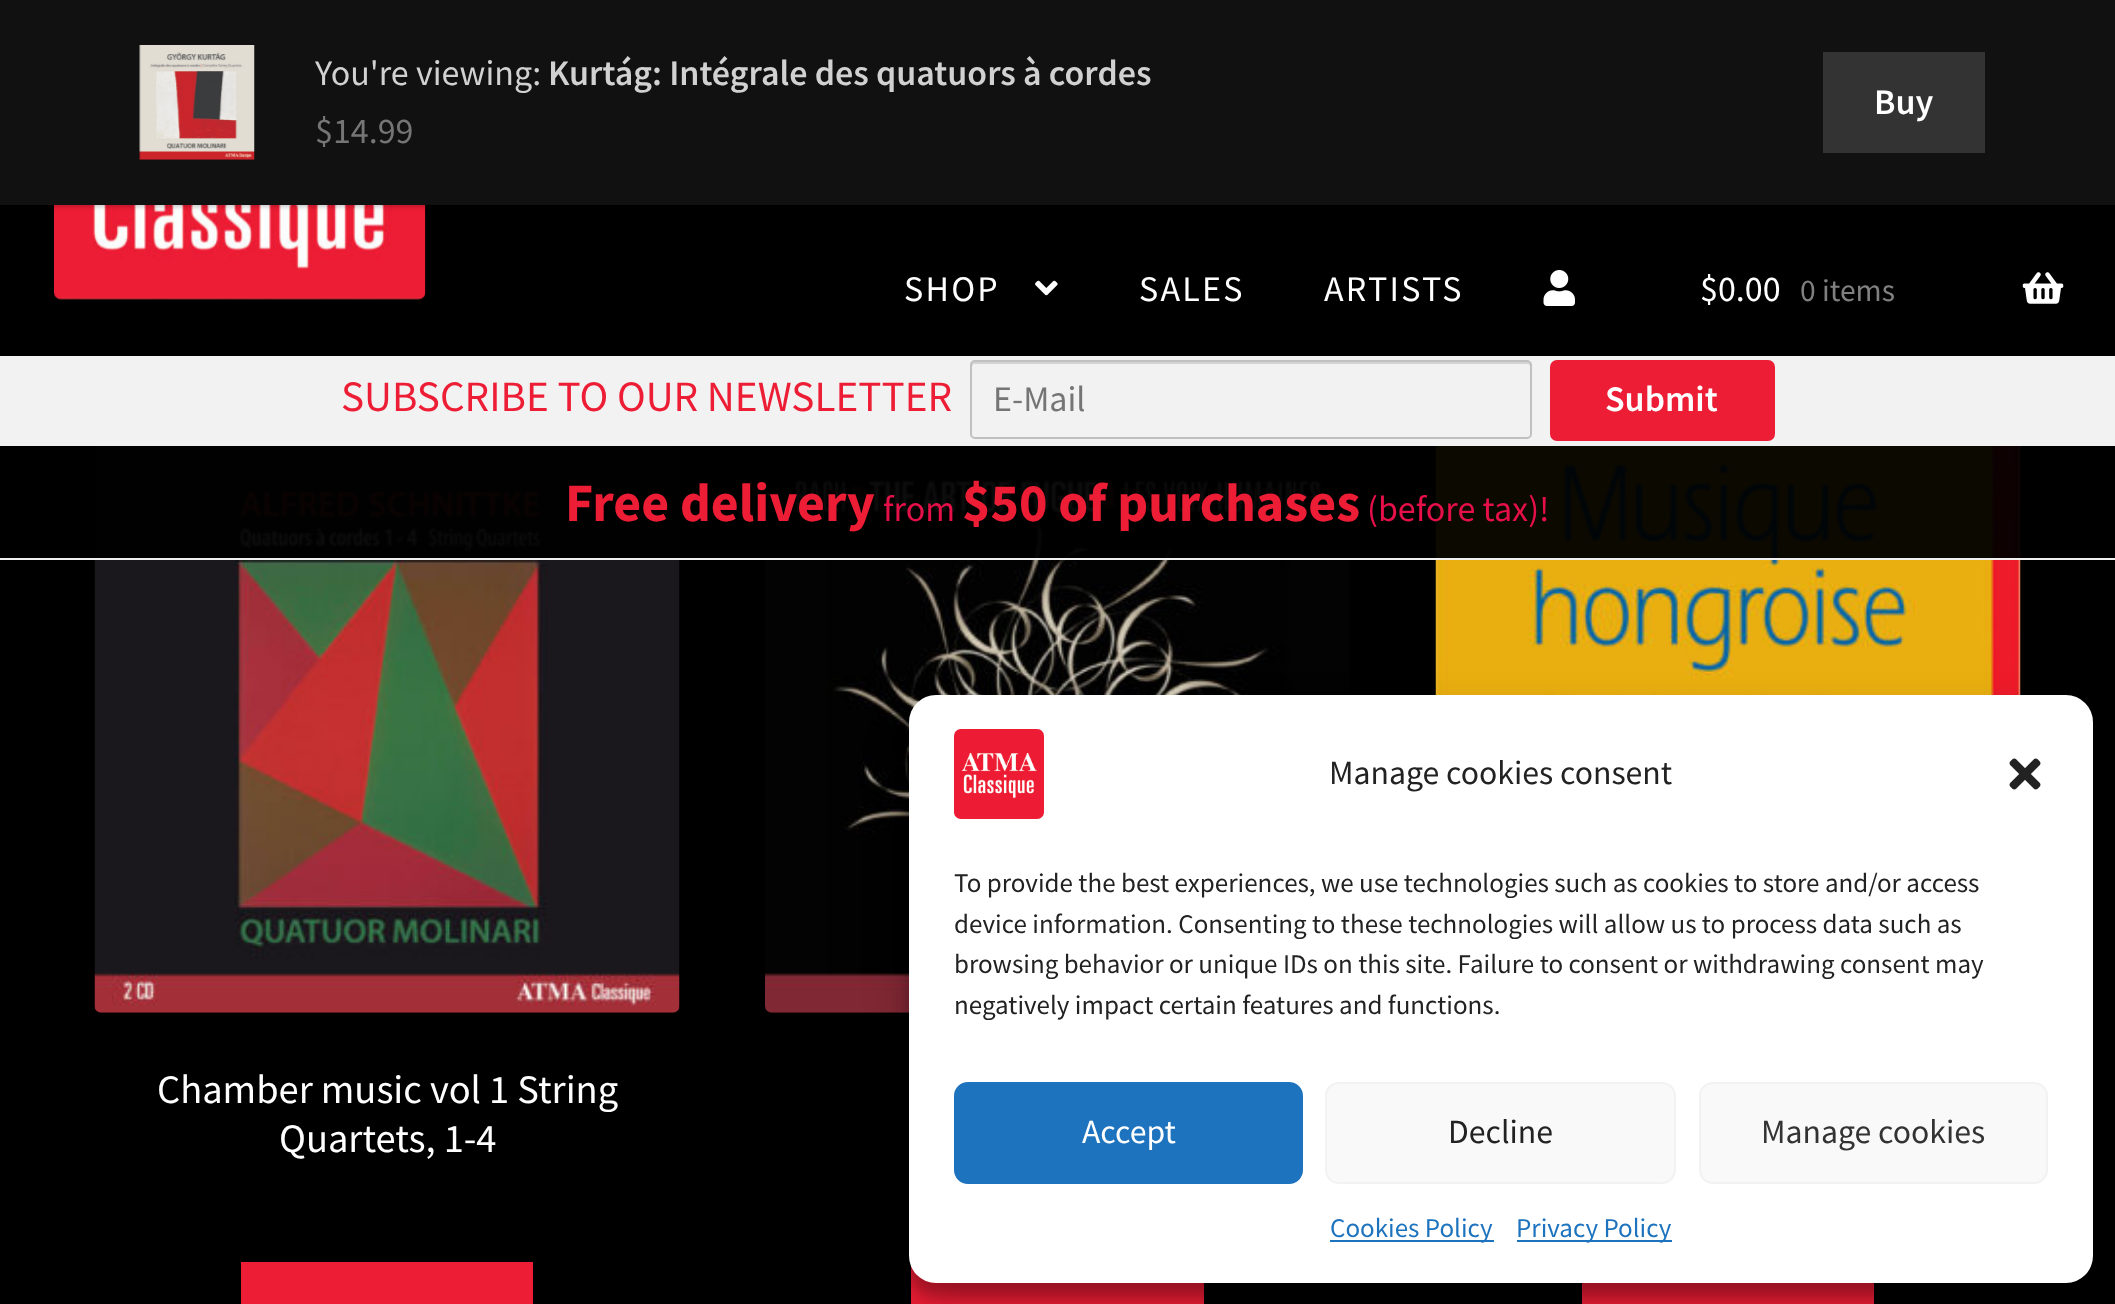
<svg xmlns="http://www.w3.org/2000/svg" width="2115" height="1304">
<rect width="100%" height="100%" fill="#000"/>
<image x="54" y="205" width="372" height="95" href="media/2.png"/>
<rect y="2" width="2115" height="205" fill="#00000033" filter="blur(2px)"/>
<rect width="2115" height="205" fill="#111"/>
<image x="139" y="45" width="116" height="115" href="media/1.png"/>
<text x="315" y="85" style="font-family:Source Sans Pro;font-size:36px;fill:#d1d1d1">You're viewing:</text>
<text x="548" y="85" style="font-family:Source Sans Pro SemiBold;font-size:36px;font-weight:600;fill:#d1d1d1">Kurtág: Intégrale des quatuors à cordes</text>
<text x="315" y="143" style="font-family:Source Sans Pro;font-size:36px;fill:#757575">$14.99</text>
<rect x="1823" y="52" width="162" height="101" fill="#333"/>
<text x="1874" y="114" style="font-family:Source Sans Pro SemiBold;font-size:36px;font-weight:600;fill:#fff">Buy</text>
<image x="94" y="446" width="586" height="567" href="media/6.png"/>
<image x="765" y="474" width="585" height="539" href="media/7.png"/>
<image x="1435" y="446" width="586" height="249" href="media/8.png"/>
<rect x="94" y="446" width="1927" height="112" fill="#000000f2"/>
<rect y="558" width="2115" height="2" fill="#f0f0f0"/>
<text x="904" y="301" style="font-family:Source Sans Pro;font-size:36px;letter-spacing:2.25px;fill:#fff">SHOP</text>
<image x="1035" y="280" width="23" height="16" href="media/3.png"/>
<text x="1139" y="301" style="font-family:Source Sans Pro;font-size:36px;letter-spacing:2.25px;fill:#fff">SALES</text>
<text x="1324" y="301" style="font-family:Source Sans Pro;font-size:36px;letter-spacing:2.25px;fill:#fff">ARTISTS</text>
<image x="1543" y="270" width="32" height="36" href="media/4.png"/>
<text x="1700" y="301" style="font-family:Source Sans Pro;font-size:36px;fill:#fff">$0.00</text>
<text x="1800" y="301" style="font-family:Source Sans Pro;font-size:31.5px;fill:#808080">0 items</text>
<image x="2022" y="272" width="42" height="32" href="media/5.png"/>
<rect y="356" width="2115" height="90" fill="#f2f2f2"/>
<text x="341" y="411" style="font-family:Source Sans Pro;font-size:43.25px;fill:#ed1d35">SUBSCRIBE TO OUR NEWSLETTER</text>
<path d="M974 364h554c1 0 2 2 2 3v-3c0-1-1-2-2-2h-554c-1 0-2 1-2 2v3c0-1 1-3 2-3z" fill="#d4d4d4"/>
<rect x="971" y="361" width="560" height="77" rx="4" fill="none" stroke="#c0c0c0" stroke-width="2"/>
<text x="993" y="411" style="font-family:Source Sans Pro;font-size:36px;fill:#757575">E-Mail</text>
<rect x="1550" y="360" width="225" height="81" rx="7" fill="#ed1d35"/>
<text x="1605" y="411" style="font-family:Source Sans Pro SemiBold;font-size:36px;font-weight:600;fill:#fff">Submit</text>
<text x="565" y="521" style="font-family:Source Sans Pro;font-size:54px;font-weight:bold;fill:#ed1d35">Free delivery</text>
<text x="883" y="521" style="font-family:Source Sans Pro;font-size:36px;fill:#e51048">from</text>
<text x="962" y="521" style="font-family:Source Sans Pro;font-size:54px;font-weight:bold;fill:#ed1d35">$50 of purchases</text>
<text x="1367" y="521" style="font-family:Source Sans Pro;font-size:36px;fill:#e51048">(before tax)!</text>
<text x="157" y="1103" style="font-family:Source Sans Pro;font-size:40.5px;fill:#fff">Chamber music vol 1 String</text>
<text x="279" y="1152" style="font-family:Source Sans Pro;font-size:40.5px;fill:#fff">Quartets, 1-4</text>
<rect x="241" y="1262" width="292" height="42" fill="#ed1d35"/>
<rect x="911" y="1266" width="293" height="38" fill="#ed1d35"/>
<rect x="1582" y="1283" width="292" height="21" fill="#ed1d35"/>
<rect x="909" y="709" width="1184" height="587" rx="27" fill="#0000003b" filter="blur(7px)"/>
<rect x="909" y="718" width="1184" height="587" rx="27" fill="#00000030" filter="blur(22.5px)"/>
<rect x="909" y="695" width="1184" height="588" rx="27" fill="#fff"/>
<image x="954" y="729" width="90" height="90" href="media/9.png"/>
<text x="1329" y="784" style="font-family:Source Sans Pro;font-size:33.75px;fill:#222">Manage cookies consent</text>
<image x="2009" y="758" width="32" height="32" href="media/10.png"/>
<text x="954" y="892" style="font-family:Source Sans Pro;font-size:27px;fill:#222">To provide the best experiences, we use technologies such as cookies to store and/or access</text>
<text x="954" y="933" style="font-family:Source Sans Pro;font-size:27px;fill:#222">device information. Consenting to these technologies will allow us to process data such as</text>
<text x="954" y="973" style="font-family:Source Sans Pro;font-size:27px;fill:#222">browsing behavior or unique IDs on this site. Failure to consent or withdrawing consent may</text>
<text x="954" y="1014" style="font-family:Source Sans Pro;font-size:27px;fill:#222">negatively impact certain features and functions.</text>
<rect x="955" y="1083" width="347" height="100" rx="13" fill="#1e73be" stroke="#1e73be" stroke-width="2"/>
<text x="1082" y="1143" style="font-family:Source Sans Pro;font-size:33.75px;fill:#fff">Accept</text>
<rect x="1326" y="1083" width="349" height="100" rx="13" fill="#f9f9f9" stroke="#f2f2f2" stroke-width="2"/>
<text x="1448" y="1143" style="font-family:Source Sans Pro;font-size:33.75px;fill:#222">Decline</text>
<rect x="1700" y="1083" width="347" height="100" rx="13" fill="#f9f9f9" stroke="#f2f2f2" stroke-width="2"/>
<text x="1761" y="1143" style="font-family:Source Sans Pro;font-size:33.75px;fill:#333">Manage cookies</text>
<rect x="1330" y="1240" width="164" height="2" fill="#1e73be"/>
<text x="1330" y="1237" style="font-family:Source Sans Pro;font-size:27px;fill:#1e73be">Cookies Policy</text>
<rect x="1517" y="1240" width="155" height="2" fill="#1e73be"/>
<text x="1516" y="1237" style="font-family:Source Sans Pro;font-size:27px;fill:#1e73be">Privacy Policy</text>
</svg>
